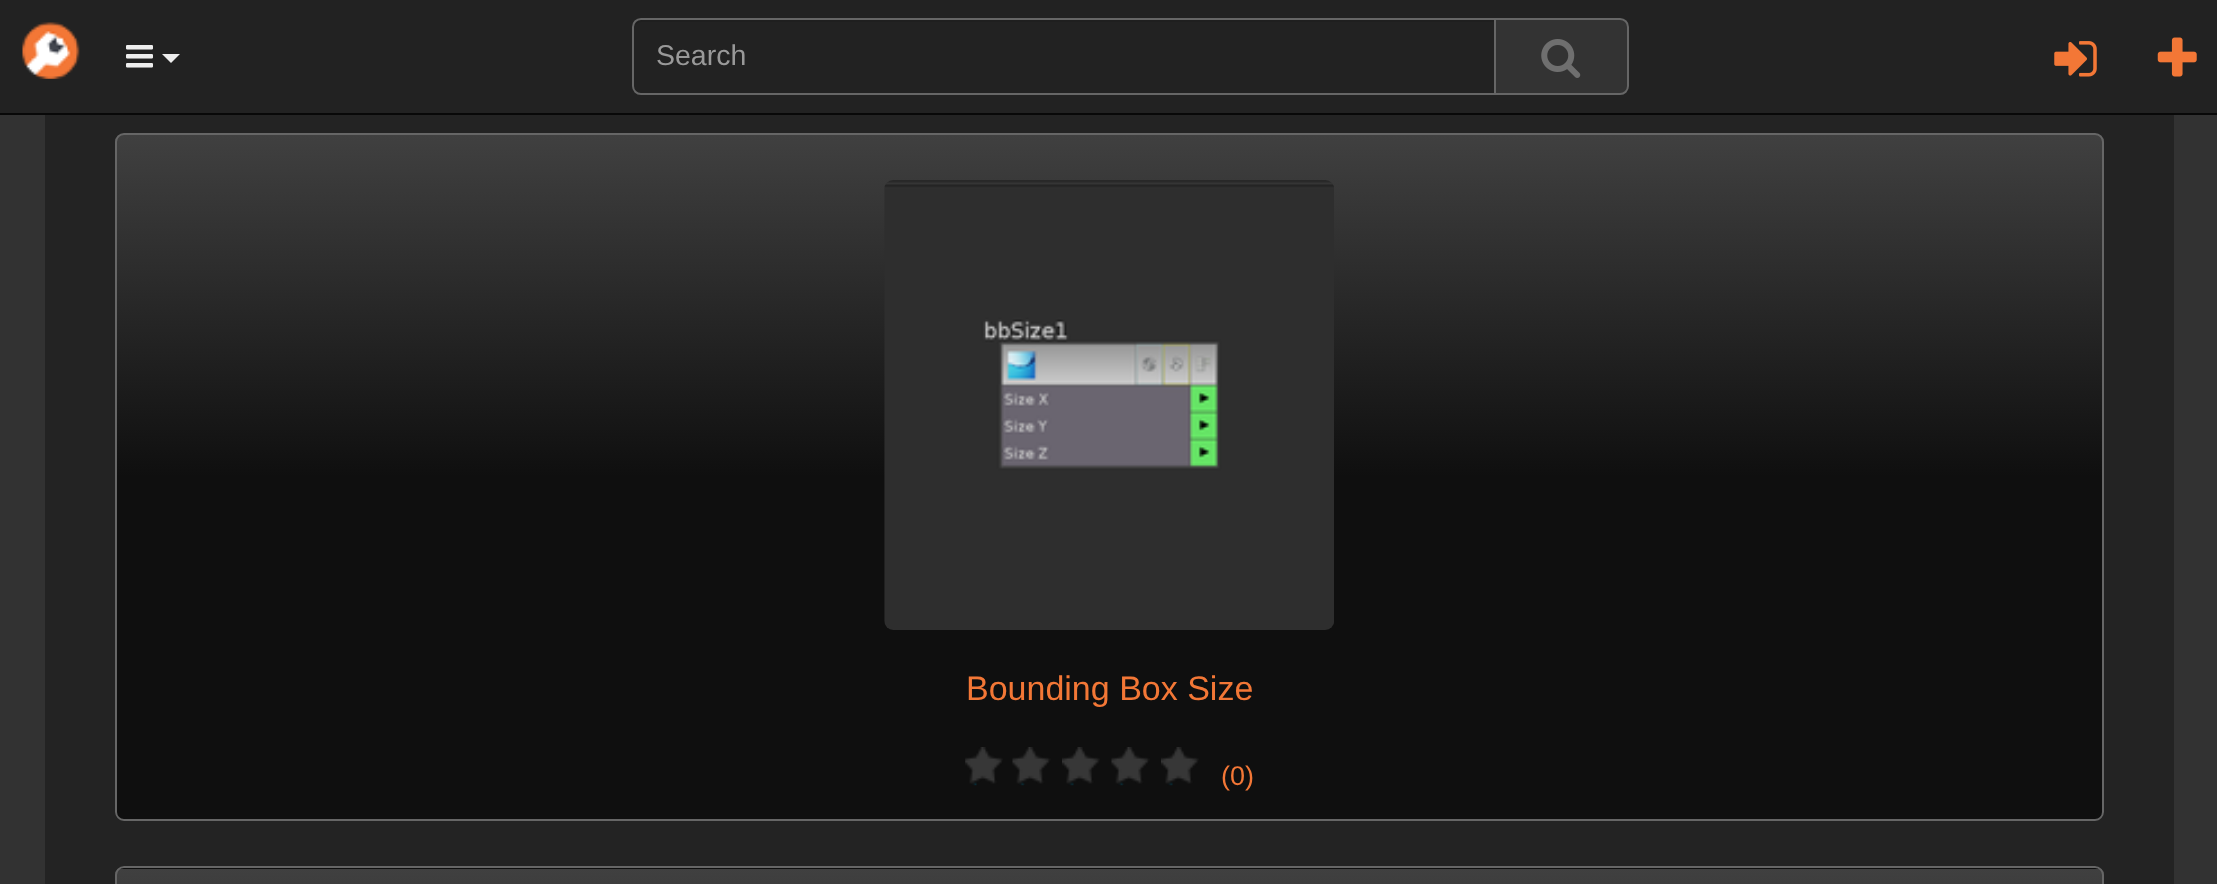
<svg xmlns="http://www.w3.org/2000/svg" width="2217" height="884">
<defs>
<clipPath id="clip1"><rect x="115" y="133" width="1989" height="688" rx="9"/></clipPath>
<linearGradient id="g1" gradientUnits="userSpaceOnUse" x1="1109" y1="135" x2="1109" y2="819"><stop offset="0" stop-color="#404040"/><stop offset="0.5" stop-color="#0f0f0f"/></linearGradient>
<clipPath id="clip2"><rect x="115" y="866" width="1989" height="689" rx="9"/></clipPath>
<linearGradient id="g2" gradientUnits="userSpaceOnUse" x1="1109" y1="184" x2="1109" y2="869"><stop offset="0" stop-color="#404040"/><stop offset="0.5" stop-color="#0f0f0f"/></linearGradient>
<linearGradient id="g3" gradientUnits="userSpaceOnUse" x1="1109" y1="868" x2="1109" y2="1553"><stop offset="0" stop-color="#404040"/><stop offset="0.5" stop-color="#0f0f0f"/></linearGradient>
</defs>
<rect width="100%" height="100%" fill="#323232"/>
<rect width="2217" height="113" fill="#222"/>
<rect y="113" width="2217" height="2" fill="#080808"/>
<image x="22" y="22" width="58" height="57" href="media/1.png"/>
<image x="126" y="45" width="27" height="23" href="media/2.png"/>
<path d="M162 54h18l-9 9z" fill="#eee"/>
<path d="M641 22h855v-2h-854c-4 0-6 3-7 6c1-2 4-4 6-4z" fill="#1f1f1f"/>
<path d="M641 19h857v75h-857c-4.5 0-8-3.5-8-8v-59c0-4.5 3.5-8 8-8z" fill="none" stroke="#666" stroke-width="2"/>
<text x="656" y="65" style="font-family:Liberation Sans;font-size:28.5px;fill:#999">Search</text>
<path d="M1495 19h125c4.5 0 8 3.5 8 8v59c0 4.5-3.5 8-8 8h-125z" fill="#333" stroke="#666" stroke-width="2"/>
<image x="1541" y="39" width="40" height="39" href="media/3.png"/>
<image x="2054" y="41" width="43" height="36" href="media/4.png"/>
<image x="2157" y="37" width="40" height="40" href="media/5.png"/>
<rect x="45" y="115" width="2129" height="769" fill="#232323"/>
<g clip-path="url(#clip1)">
<rect x="115" y="135" width="1989" height="684" fill="url(#g1)"/>
</g>
<rect x="116" y="134" width="1987" height="686" rx="8" fill="none" stroke="#666" stroke-width="2"/>
<image x="884" y="180" width="450" height="450" href="media/6.png"/>
<text x="966" y="700" style="font-family:Liberation Sans;font-size:34px;fill:#f37736">Bounding Box Size</text>
<image x="965" y="747" width="38" height="39" href="media/7.png"/>
<image x="1012" y="747" width="39" height="39" href="media/8.png"/>
<image x="1062" y="747" width="38" height="39" href="media/9.png"/>
<image x="1111" y="747" width="39" height="39" href="media/10.png"/>
<image x="1161" y="747" width="38" height="39" href="media/9.png"/>
<text x="1221" y="785" style="font-family:Liberation Sans;font-size:27px;fill:#f37736">(0)</text>
<g clip-path="url(#clip2)">
<rect x="115" y="866" width="1989" height="3" fill="url(#g2)"/>
<rect x="115" y="869" width="1989" height="15" fill="url(#g3)"/>
</g>
<rect x="116" y="867" width="1987" height="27" rx="8" fill="none" stroke="#666" stroke-width="2"/>
</svg>
